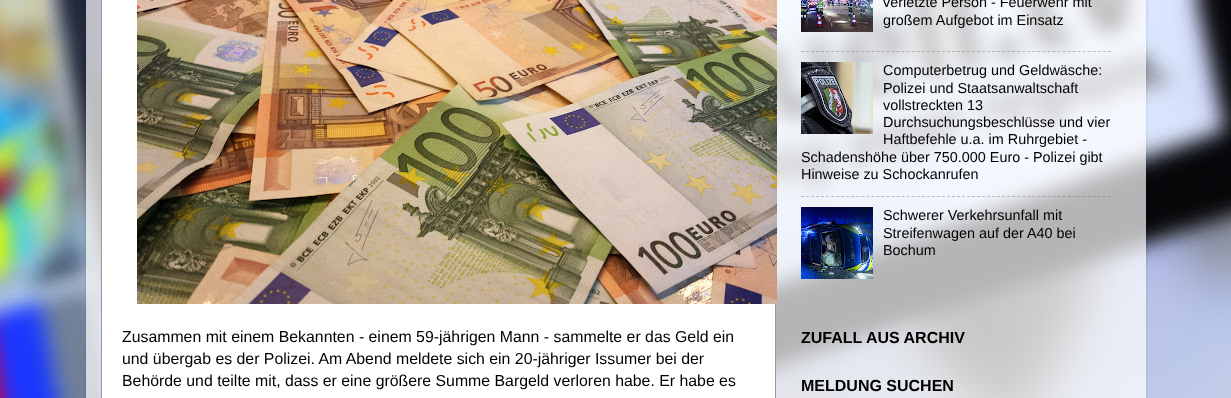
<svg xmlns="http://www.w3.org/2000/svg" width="1231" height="398">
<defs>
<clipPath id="clip1"><path d="M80 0h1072v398h-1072zm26-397h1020c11 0 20 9 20 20v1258h-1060v-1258c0-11 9-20 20-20z" clip-rule="evenodd"/></clipPath>
</defs>
<rect width="100%" height="100%" fill="#fff"/>
<image x="0" y="0" width="1231" height="398" href="media/1.png"/>
<g clip-path="url(#clip1)">
<rect x="86" y="-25" width="1060" height="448" rx="20" fill="#00000026" filter="blur(1.5px)"/>
</g>
<rect x="86" width="1060" height="398" fill="#ffffffb3"/>
<rect x="101.5" y="-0.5" width="674" height="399" fill="#fff" stroke="#999"/>
<image x="137" y="0" width="640" height="304" href="media/2.png"/>
<text x="122" y="342" style="font-family:Liberation Sans;font-size:15.85px;fill:#000">Zusammen mit einem Bekannten - einem 59-jährigen Mann - sammelte er das Geld ein</text>
<text x="122" y="364" style="font-family:Liberation Sans;font-size:15.85px;fill:#000">und übergab es der Polizei. Am Abend meldete sich ein 20-jähriger Issumer bei der</text>
<text x="122" y="386" style="font-family:Liberation Sans;font-size:15.85px;fill:#000">Behörde und teilte mit, dass er eine größere Summe Bargeld verloren habe. Er habe es</text>
<image x="801" y="0" width="72" height="32" href="media/3.png"/>
<text x="883" y="7" style="font-family:Liberation Sans;font-size:14.4px;fill:#000">verletzte Person - Feuerwehr mit</text>
<text x="883" y="25" style="font-family:Liberation Sans;font-size:14.4px;fill:#000">großem Aufgebot im Einsatz</text>
<path d="M801 51.5h310" fill="none" stroke="#80808080" stroke-dasharray="3 2.03"/>
<image x="801" y="62" width="72" height="72" href="media/4.png"/>
<text x="883" y="75" style="font-family:Liberation Sans;font-size:14.4px;fill:#000">Computerbetrug und Geldwäsche:</text>
<text x="883" y="93" style="font-family:Liberation Sans;font-size:14.4px;fill:#000">Polizei und Staatsanwaltschaft</text>
<text x="883" y="110" style="font-family:Liberation Sans;font-size:14.4px;fill:#000">vollstreckten 13</text>
<text x="883" y="127" style="font-family:Liberation Sans;font-size:14.4px;fill:#000">Durchsuchungsbeschlüsse und vier</text>
<text x="883" y="144" style="font-family:Liberation Sans;font-size:14.4px;fill:#000">Haftbefehle u.a. im Ruhrgebiet -</text>
<text x="801" y="162" style="font-family:Liberation Sans;font-size:14.4px;fill:#000">Schadenshöhe über 750.000 Euro - Polizei gibt</text>
<text x="801" y="179" style="font-family:Liberation Sans;font-size:14.4px;fill:#000">Hinweise zu Schockanrufen</text>
<path d="M801 196.5h310" fill="none" stroke="#80808080" stroke-dasharray="3 2.03"/>
<image x="801" y="207" width="72" height="72" href="media/5.png"/>
<text x="883" y="220" style="font-family:Liberation Sans;font-size:14.4px;fill:#000">Schwerer Verkehrsunfall mit</text>
<text x="883" y="238" style="font-family:Liberation Sans;font-size:14.4px;fill:#000">Streifenwagen auf der A40 bei</text>
<text x="883" y="255" style="font-family:Liberation Sans;font-size:14.4px;fill:#000">Bochum</text>
<text x="801" y="343" style="font-family:Liberation Sans;font-size:16px;font-weight:bold;fill:#000">ZUFALL AUS ARCHIV</text>
<text x="801" y="391" style="font-family:Liberation Sans;font-size:16px;font-weight:bold;fill:#000">MELDUNG SUCHEN</text>
</svg>
